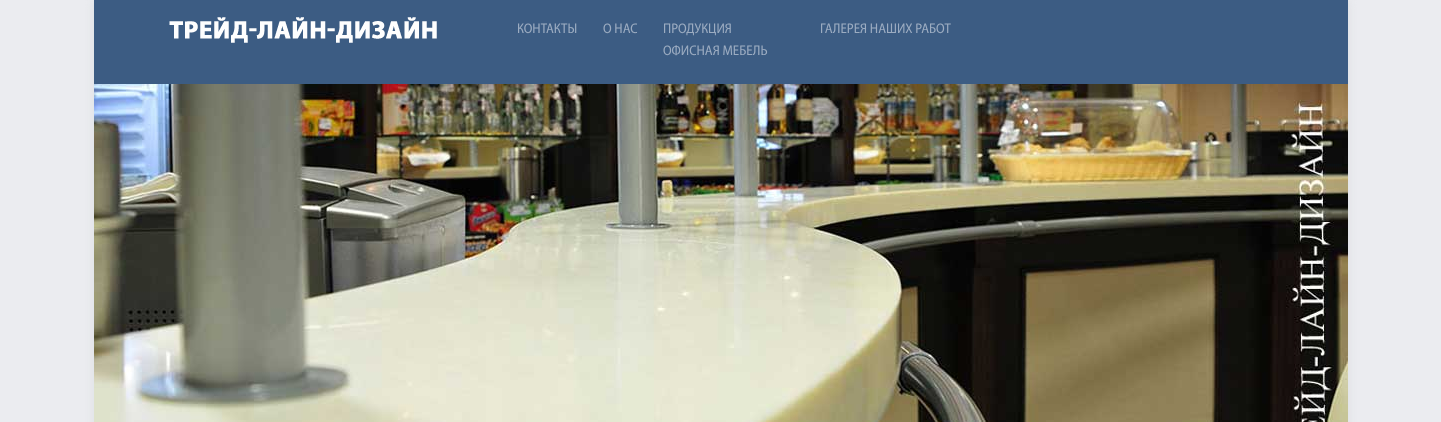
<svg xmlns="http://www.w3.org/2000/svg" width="1441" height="422">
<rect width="100%" height="100%" fill="#ebecf0"/>
<rect x="94" width="1254" height="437" fill="#dddfe2" filter="blur(5px)"/>
<rect x="94" width="1254" height="84" fill="#3c5c83"/>
<image x="169" y="17" width="268" height="26" href="media/1.png"/>
<text x="517" y="33" style="font-family:Myriad;font-size:14px;fill:#9cacc1">КОНТАКТЫ</text>
<text x="603" y="33" style="font-family:Myriad;font-size:14px;fill:#9cacc1">О НАС</text>
<text x="663" y="33" style="font-family:Myriad;font-size:14px;fill:#9cacc1">ПРОДУКЦИЯ</text>
<text x="663" y="55" style="font-family:Myriad;font-size:14px;fill:#9cacc1">ОФИСНАЯ МЕБЕЛЬ</text>
<text x="820" y="33" style="font-family:Myriad;font-size:14px;fill:#9cacc1">ГАЛЕРЕЯ НАШИХ РАБОТ</text>
<image x="94" y="84" width="1254" height="338" href="media/2.png"/>
</svg>
